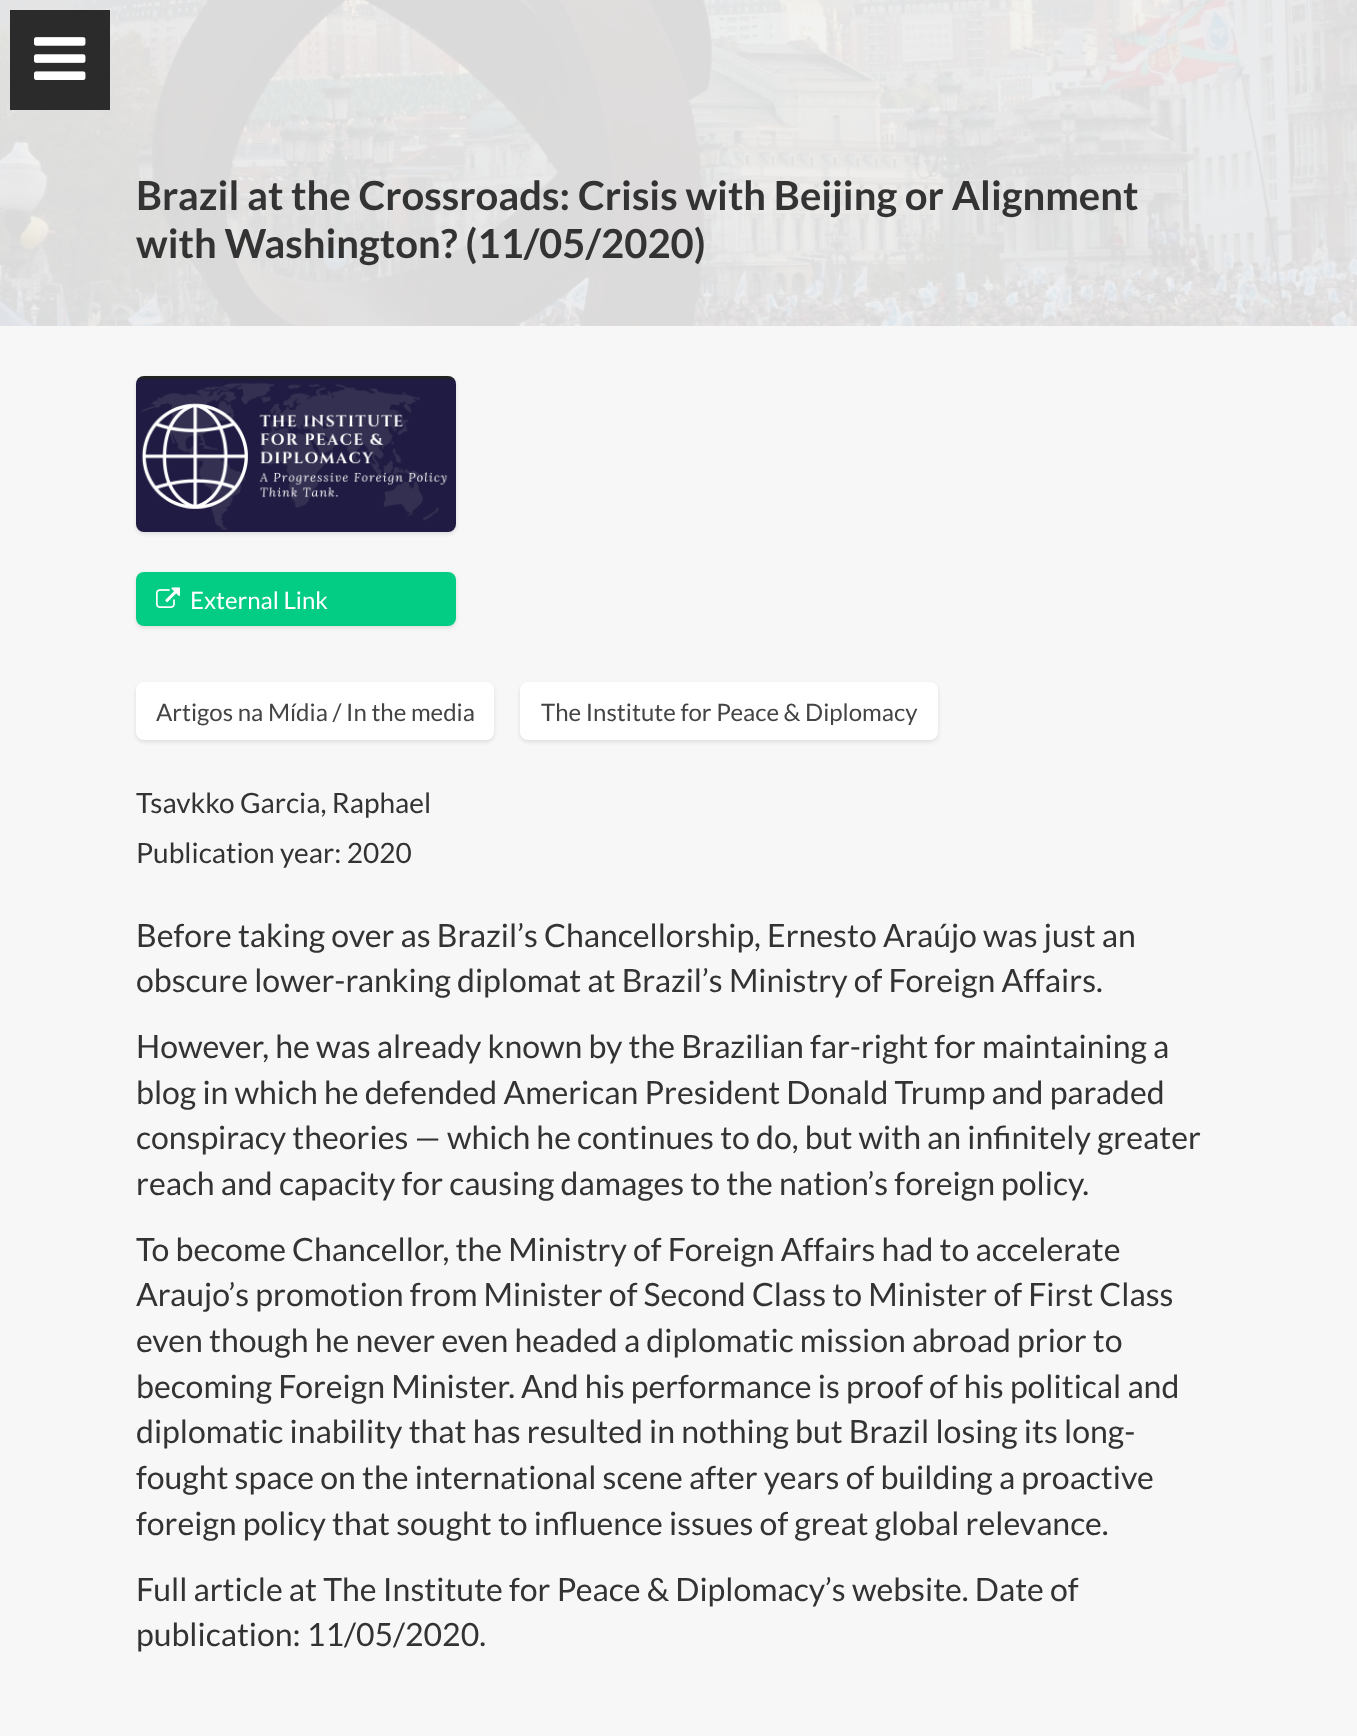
<svg xmlns="http://www.w3.org/2000/svg" width="1357" height="1736">
<rect width="100%" height="100%" fill="#f7f7f7"/>
<image x="0" y="0" width="1357" height="326" href="media/2.png"/>
<rect x="10" y="10" width="100" height="100" fill="#2b2b2b"/>
<image x="34" y="37" width="52" height="43" href="media/1.png"/>
<text x="136" y="210" style="font-family:Lato;font-size:40px;font-weight:bold;fill:#333">Brazil at the Crossroads: Crisis with Beijing or Alignment</text>
<text x="136" y="258" style="font-family:Lato;font-size:40px;font-weight:bold;fill:#333">with Washington? (11/05/2020)</text>
<rect x="136" y="378" width="320" height="156" rx="8" fill="#0000001a" filter="blur(2px)"/>
<image x="136" y="376" width="320" height="156" href="media/3.png"/>
<rect x="136" y="574" width="320" height="54" rx="8" fill="#0000001a" filter="blur(2px)"/>
<rect x="136" y="572" width="320" height="54" rx="8" fill="#03cc85"/>
<image x="156" y="587" width="24" height="21" href="media/4.png"/>
<text x="190" y="609" style="font-family:Lato;font-size:24px;fill:#fff">External Link</text>
<rect x="136" y="684" width="358" height="58" rx="8" fill="#0000001a" filter="blur(2px)"/>
<rect x="136" y="682" width="358" height="58" rx="8" fill="#fff"/>
<text x="156" y="721" style="font-family:Lato;font-size:24px;fill:#444">Artigos na Mídia / In the media</text>
<rect x="520" y="684" width="418" height="58" rx="8" fill="#0000001a" filter="blur(2px)"/>
<rect x="520" y="682" width="418" height="58" rx="8" fill="#fff"/>
<text x="541" y="721" style="font-family:Lato;font-size:24px;fill:#444">The Institute for Peace &amp; Diplomacy</text>
<text x="136" y="813" style="font-family:Lato;font-size:28px;fill:#333">Tsavkko Garcia, Raphael</text>
<text x="136" y="863" style="font-family:Lato;font-size:28px;fill:#333">Publication year: 2020</text>
<text x="136" y="947" style="font-family:Lato;font-size:32px;fill:#333">Before taking over as Brazil’s Chancellorship, Ernesto Araújo was just an</text>
<text x="136" y="992" style="font-family:Lato;font-size:32px;fill:#333">obscure lower-ranking diplomat at Brazil’s Ministry of Foreign Affairs.</text>
<text x="136" y="1058" style="font-family:Lato;font-size:32px;fill:#333">However, he was already known by the Brazilian far-right for maintaining a</text>
<text x="136" y="1104" style="font-family:Lato;font-size:32px;fill:#333">blog in which he defended American President Donald Trump and paraded</text>
<text x="136" y="1149" style="font-family:Lato;font-size:32px;fill:#333">conspiracy theories — which he continues to do, but with an infinitely greater</text>
<text x="136" y="1195" style="font-family:Lato;font-size:32px;fill:#333">reach and capacity for causing damages to the nation’s foreign policy.</text>
<text x="136" y="1261" style="font-family:Lato;font-size:32px;fill:#333">To become Chancellor, the Ministry of Foreign Affairs had to accelerate</text>
<text x="136" y="1306" style="font-family:Lato;font-size:32px;fill:#333">Araujo’s promotion from Minister of Second Class to Minister of First Class</text>
<text x="136" y="1352" style="font-family:Lato;font-size:32px;fill:#333">even though he never even headed a diplomatic mission abroad prior to</text>
<text x="136" y="1398" style="font-family:Lato;font-size:32px;fill:#333">becoming Foreign Minister. And his performance is proof of his political and</text>
<text x="136" y="1443" style="font-family:Lato;font-size:32px;fill:#333">diplomatic inability that has resulted in nothing but Brazil losing its long-</text>
<text x="136" y="1489" style="font-family:Lato;font-size:32px;fill:#333">fought space on the international scene after years of building a proactive</text>
<text x="136" y="1535" style="font-family:Lato;font-size:32px;fill:#333">foreign policy that sought to influence issues of great global relevance.</text>
<text x="136" y="1601" style="font-family:Lato;font-size:32px;fill:#333">Full article at The Institute for Peace &amp; Diplomacy’s website. Date of</text>
<text x="136" y="1646" style="font-family:Lato;font-size:32px;fill:#333">publication: 11/05/2020.</text>
</svg>
